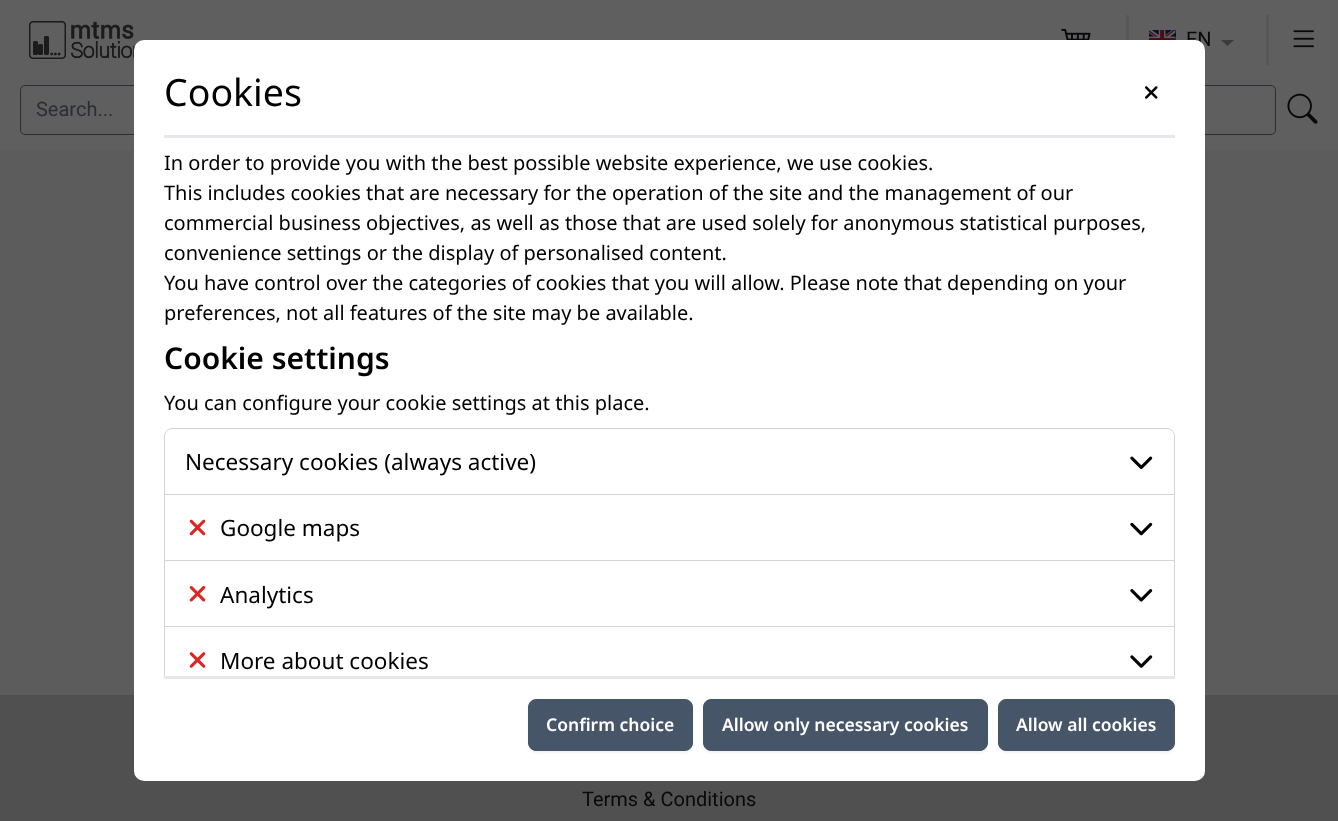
<svg xmlns="http://www.w3.org/2000/svg" width="1338" height="821">
<defs>
<clipPath id="clip1"><rect x="164" y="138" width="1011" height="538"/></clipPath>
</defs>
<rect width="100%" height="100%" fill="#5c5c5d"/>
<rect width="1338" height="150" fill="#5f5f60"/>
<image x="29" y="21" width="106" height="38" href="media/1.png"/>
<image x="1061" y="28" width="30" height="12" href="media/2.png"/>
<rect x="1126" y="15" width="3" height="25" fill="#565759"/>
<image x="1149" y="30" width="27" height="10" href="media/3.png"/>
<text x="1186" y="46" style="font-family:Roboto;font-size:20px;fill:#09090b">EN</text>
<path d="M1221 40h13l-6.5 6z" fill="#3b3b3d"/>
<rect x="1266" y="15" width="3" height="50" fill="#565759"/>
<image x="1293" y="30" width="21" height="18" href="media/4.png"/>
<rect x="20.5" y="85.5" width="1255" height="49" rx="4.5" fill="none" stroke="#2b2e34"/>
<text x="36" y="116" style="font-family:Roboto;font-size:20px;fill:#2b2e34">Search...</text>
<image x="1287" y="93" width="31" height="31" href="media/5.png"/>
<rect y="695" width="1338" height="126" fill="#505051"/>
<text x="582" y="806" style="font-family:Roboto;font-size:20px;fill:#09090b">Terms &amp; Conditions</text>
<rect x="134" y="40" width="1071" height="741" rx="10" fill="#fff"/>
<text x="164" y="106" style="font-family:Noto Sans;font-size:37.5px;fill:#000">Cookies</text>
<image x="1145" y="86" width="13" height="13" href="media/6.png"/>
<rect x="164" y="135" width="1011" height="3" fill="#e5e7eb"/>
<rect x="164" y="676" width="1011" height="3" fill="#e5e7eb"/>
<text x="164" y="170" style="font-family:Noto Sans;font-size:20px;fill:#000">In order to provide you with the best possible website experience, we use cookies.</text>
<text x="164" y="200" style="font-family:Noto Sans;font-size:20px;fill:#000">This includes cookies that are necessary for the operation of the site and the management of our</text>
<text x="164" y="230" style="font-family:Noto Sans;font-size:20px;fill:#000">commercial business objectives, as well as those that are used solely for anonymous statistical purposes,</text>
<text x="164" y="260" style="font-family:Noto Sans;font-size:20px;fill:#000">convenience settings or the display of personalised content.</text>
<text x="164" y="290" style="font-family:Noto Sans;font-size:20px;fill:#000">You have control over the categories of cookies that you will allow. Please note that depending on your</text>
<text x="164" y="320" style="font-family:Noto Sans;font-size:20px;fill:#000">preferences, not all features of the site may be available.</text>
<text x="164" y="369" style="font-family:Noto Sans;font-size:30px;font-weight:600;fill:#000">Cookie settings</text>
<text x="164" y="410" style="font-family:Noto Sans;font-size:20px;fill:#000">You can configure your cookie settings at this place.</text>
<g clip-path="url(#clip1)">
<path d="M172 428c-4 0-8 4-8 8v243h1v-243c0-4 3-7 7-7h995c4 0 7 3 7 7v243h1v-243c0-4-4-8-8-8z" fill="#d4d4d4"/>
</g>
<rect x="165" y="494" width="1009" height="1" fill="#d4d4d4"/>
<text x="185" y="470" style="font-family:Noto Sans;font-size:22.5px;fill:#000">Necessary cookies (always active)</text>
<image x="1130" y="456" width="23" height="13" href="media/7.png"/>
<rect x="165" y="560" width="1009" height="1" fill="#d4d4d4"/>
<image x="189" y="519" width="17" height="17" href="media/8.png"/>
<text x="220" y="536" style="font-family:Noto Sans;font-size:22.5px;fill:#000">Google maps</text>
<image x="1130" y="522" width="23" height="14" href="media/9.png"/>
<rect x="165" y="626" width="1009" height="1" fill="#d4d4d4"/>
<image x="189" y="585" width="17" height="17" href="media/10.png"/>
<text x="220" y="603" style="font-family:Noto Sans;font-size:22.5px;fill:#000">Analytics</text>
<image x="1130" y="589" width="23" height="13" href="media/11.png"/>
<image x="189" y="652" width="17" height="16" href="media/12.png"/>
<text x="220" y="669" style="font-family:Noto Sans;font-size:22.5px;fill:#000">More about cookies</text>
<image x="1130" y="655" width="23" height="13" href="media/13.png"/>
<rect x="528" y="700" width="165" height="53" rx="8" fill="#0000000d" filter="blur(1px)"/>
<rect x="528.5" y="699.5" width="164" height="51" rx="7.5" fill="#475569" stroke="#475569"/>
<text x="546" y="731" style="font-family:Noto Sans;font-size:17.5px;font-weight:600;fill:#fff">Confirm choice</text>
<rect x="703" y="700" width="285" height="53" rx="8" fill="#0000000d" filter="blur(1px)"/>
<rect x="703.5" y="699.5" width="284" height="51" rx="7.5" fill="#475569" stroke="#475569"/>
<text x="722" y="731" style="font-family:Noto Sans;font-size:17.5px;font-weight:600;fill:#fff">Allow only necessary cookies</text>
<rect x="998" y="700" width="177" height="53" rx="8" fill="#0000000d" filter="blur(1px)"/>
<rect x="998.5" y="699.5" width="176" height="51" rx="7.5" fill="#475569" stroke="#475569"/>
<text x="1016" y="731" style="font-family:Noto Sans;font-size:17.5px;font-weight:600;fill:#fff">Allow all cookies</text>
</svg>
